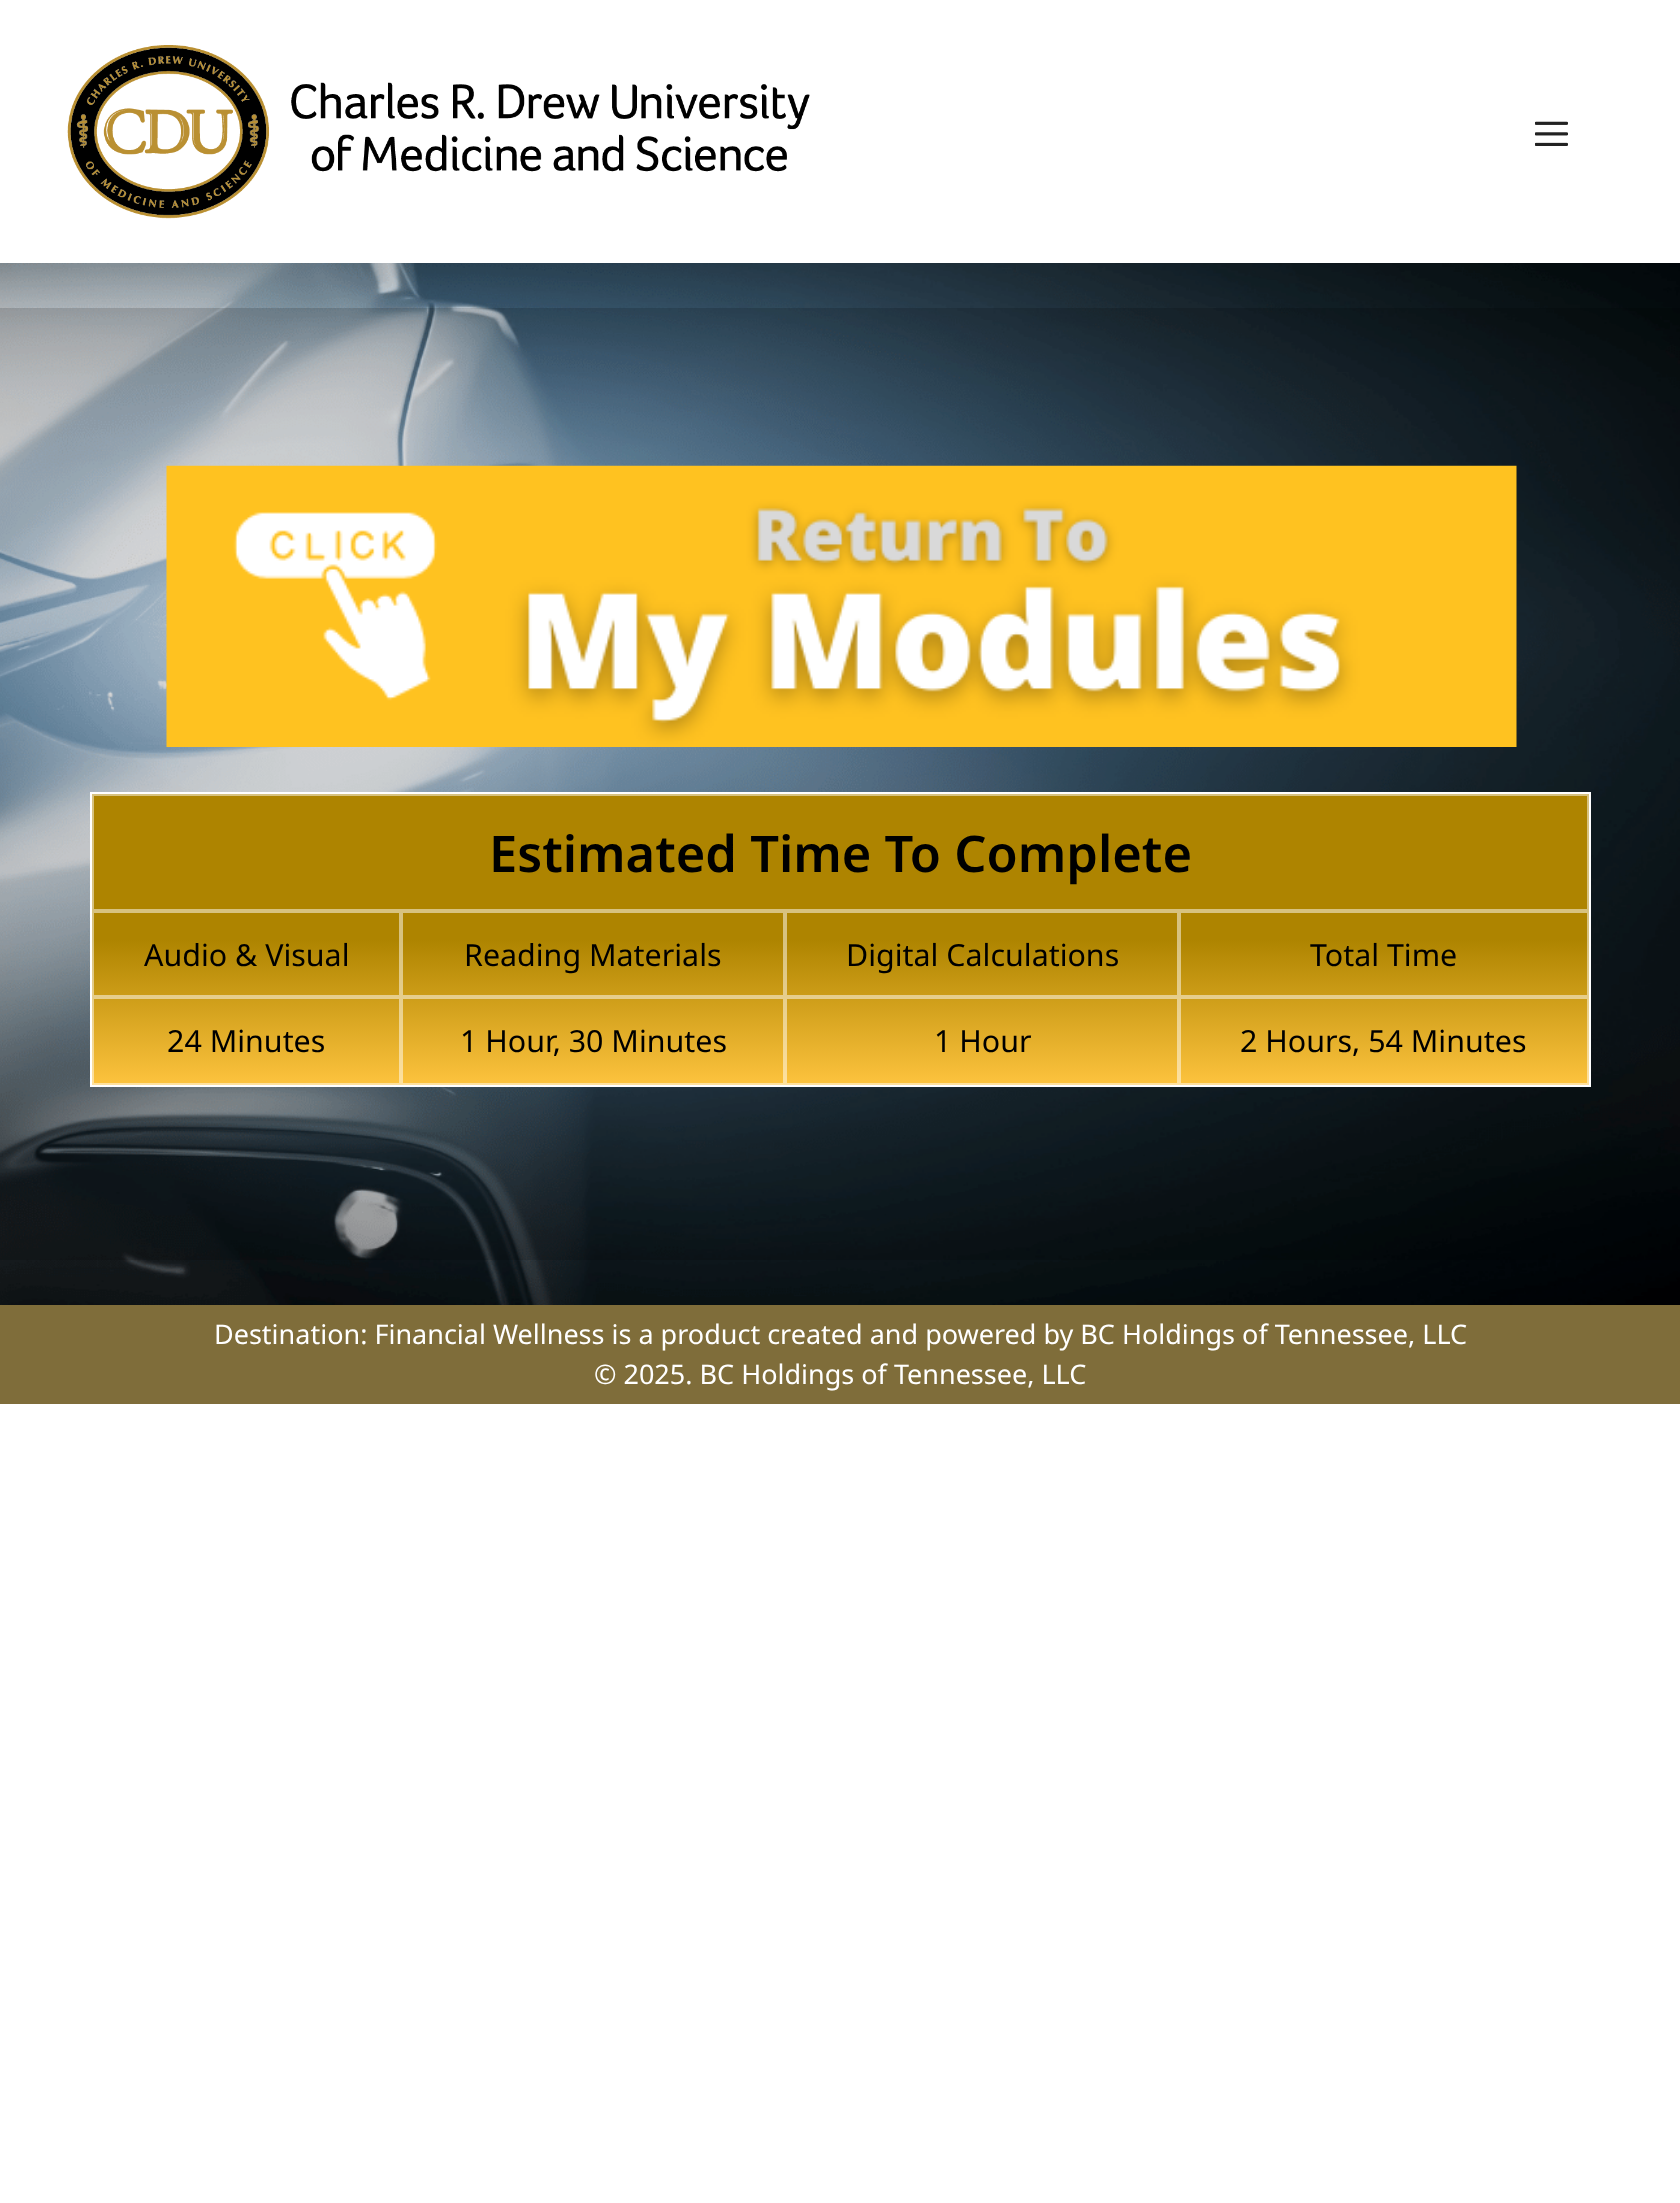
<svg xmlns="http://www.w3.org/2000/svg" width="1680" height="2203">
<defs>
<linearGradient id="g1" gradientUnits="userSpaceOnUse" x1="840" y1="794" x2="840" y2="1085"><stop offset="0" stop-color="#ae8400"/><stop offset="0.5" stop-color="#ae8400"/><stop offset="1" stop-color="#fdc33e"/></linearGradient>
</defs>
<rect width="100%" height="100%" fill="#fff"/>
<image x="0" y="263" width="1680" height="1042" href="media/1.png"/>
<image x="67" y="45" width="743" height="174" href="media/2.png"/>
<image x="1535" y="121" width="33" height="25" href="media/3.png"/>
<rect y="308" width="1680" height="952" fill="#00000026"/>
<image x="166" y="465" width="1351" height="282" href="media/4.png"/>
<rect x="92" y="796" width="1497" height="289" fill="url(#g1)"/>
<rect x="91" y="793" width="1499" height="293" fill="none" stroke="#fff" stroke-width="2"/>
<rect x="93" y="795" width="1495" height="115" fill="none" stroke="#d7c280" stroke-width="2"/>
<text x="489" y="872" style="font-family:Noto Sans;font-size:50.6px;font-weight:600;fill:#000">Estimated Time To Complete</text>
<rect x="93" y="912" width="307" height="84" fill="none" stroke="#ffffff80" stroke-width="2"/>
<text x="144" y="966" style="font-family:Noto Sans;font-size:30.4px;fill:#000">Audio &amp; Visual</text>
<rect x="402" y="912" width="382" height="84" fill="none" stroke="#ffffff80" stroke-width="2"/>
<text x="464" y="966" style="font-family:Noto Sans;font-size:30.4px;fill:#000">Reading Materials</text>
<rect x="786" y="912" width="392" height="84" fill="none" stroke="#ffffff80" stroke-width="2"/>
<text x="846" y="966" style="font-family:Noto Sans;font-size:30.4px;fill:#000">Digital Calculations</text>
<rect x="1180" y="912" width="408" height="84" fill="none" stroke="#ffffff80" stroke-width="2"/>
<text x="1310" y="966" style="font-family:Noto Sans;font-size:30.4px;fill:#000">Total Time</text>
<rect x="93" y="998" width="307" height="86" fill="none" stroke="#ffffff80" stroke-width="2"/>
<text x="167" y="1052" style="font-family:Noto Sans;font-size:30.4px;fill:#000">24 Minutes</text>
<rect x="402" y="998" width="382" height="86" fill="none" stroke="#ffffff80" stroke-width="2"/>
<text x="460" y="1052" style="font-family:Noto Sans;font-size:30.4px;fill:#000">1 Hour, 30 Minutes</text>
<rect x="786" y="998" width="392" height="86" fill="none" stroke="#ffffff80" stroke-width="2"/>
<text x="934" y="1052" style="font-family:Noto Sans;font-size:30.4px;fill:#000">1 Hour</text>
<rect x="1180" y="998" width="408" height="86" fill="none" stroke="#ffffff80" stroke-width="2"/>
<text x="1240" y="1052" style="font-family:Noto Sans;font-size:30.4px;fill:#000">2 Hours, 54 Minutes</text>
<rect y="1305" width="1680" height="99" fill="#7f6d3a"/>
<text x="214" y="1344" style="font-family:Noto Sans;font-size:27px;fill:#fff">Destination: Financial Wellness is a product created and powered by BC Holdings of Tennessee, LLC</text>
<text x="594" y="1384" style="font-family:Noto Sans;font-size:27px;fill:#fff">© 2025. BC Holdings of Tennessee, LLC</text>
</svg>
